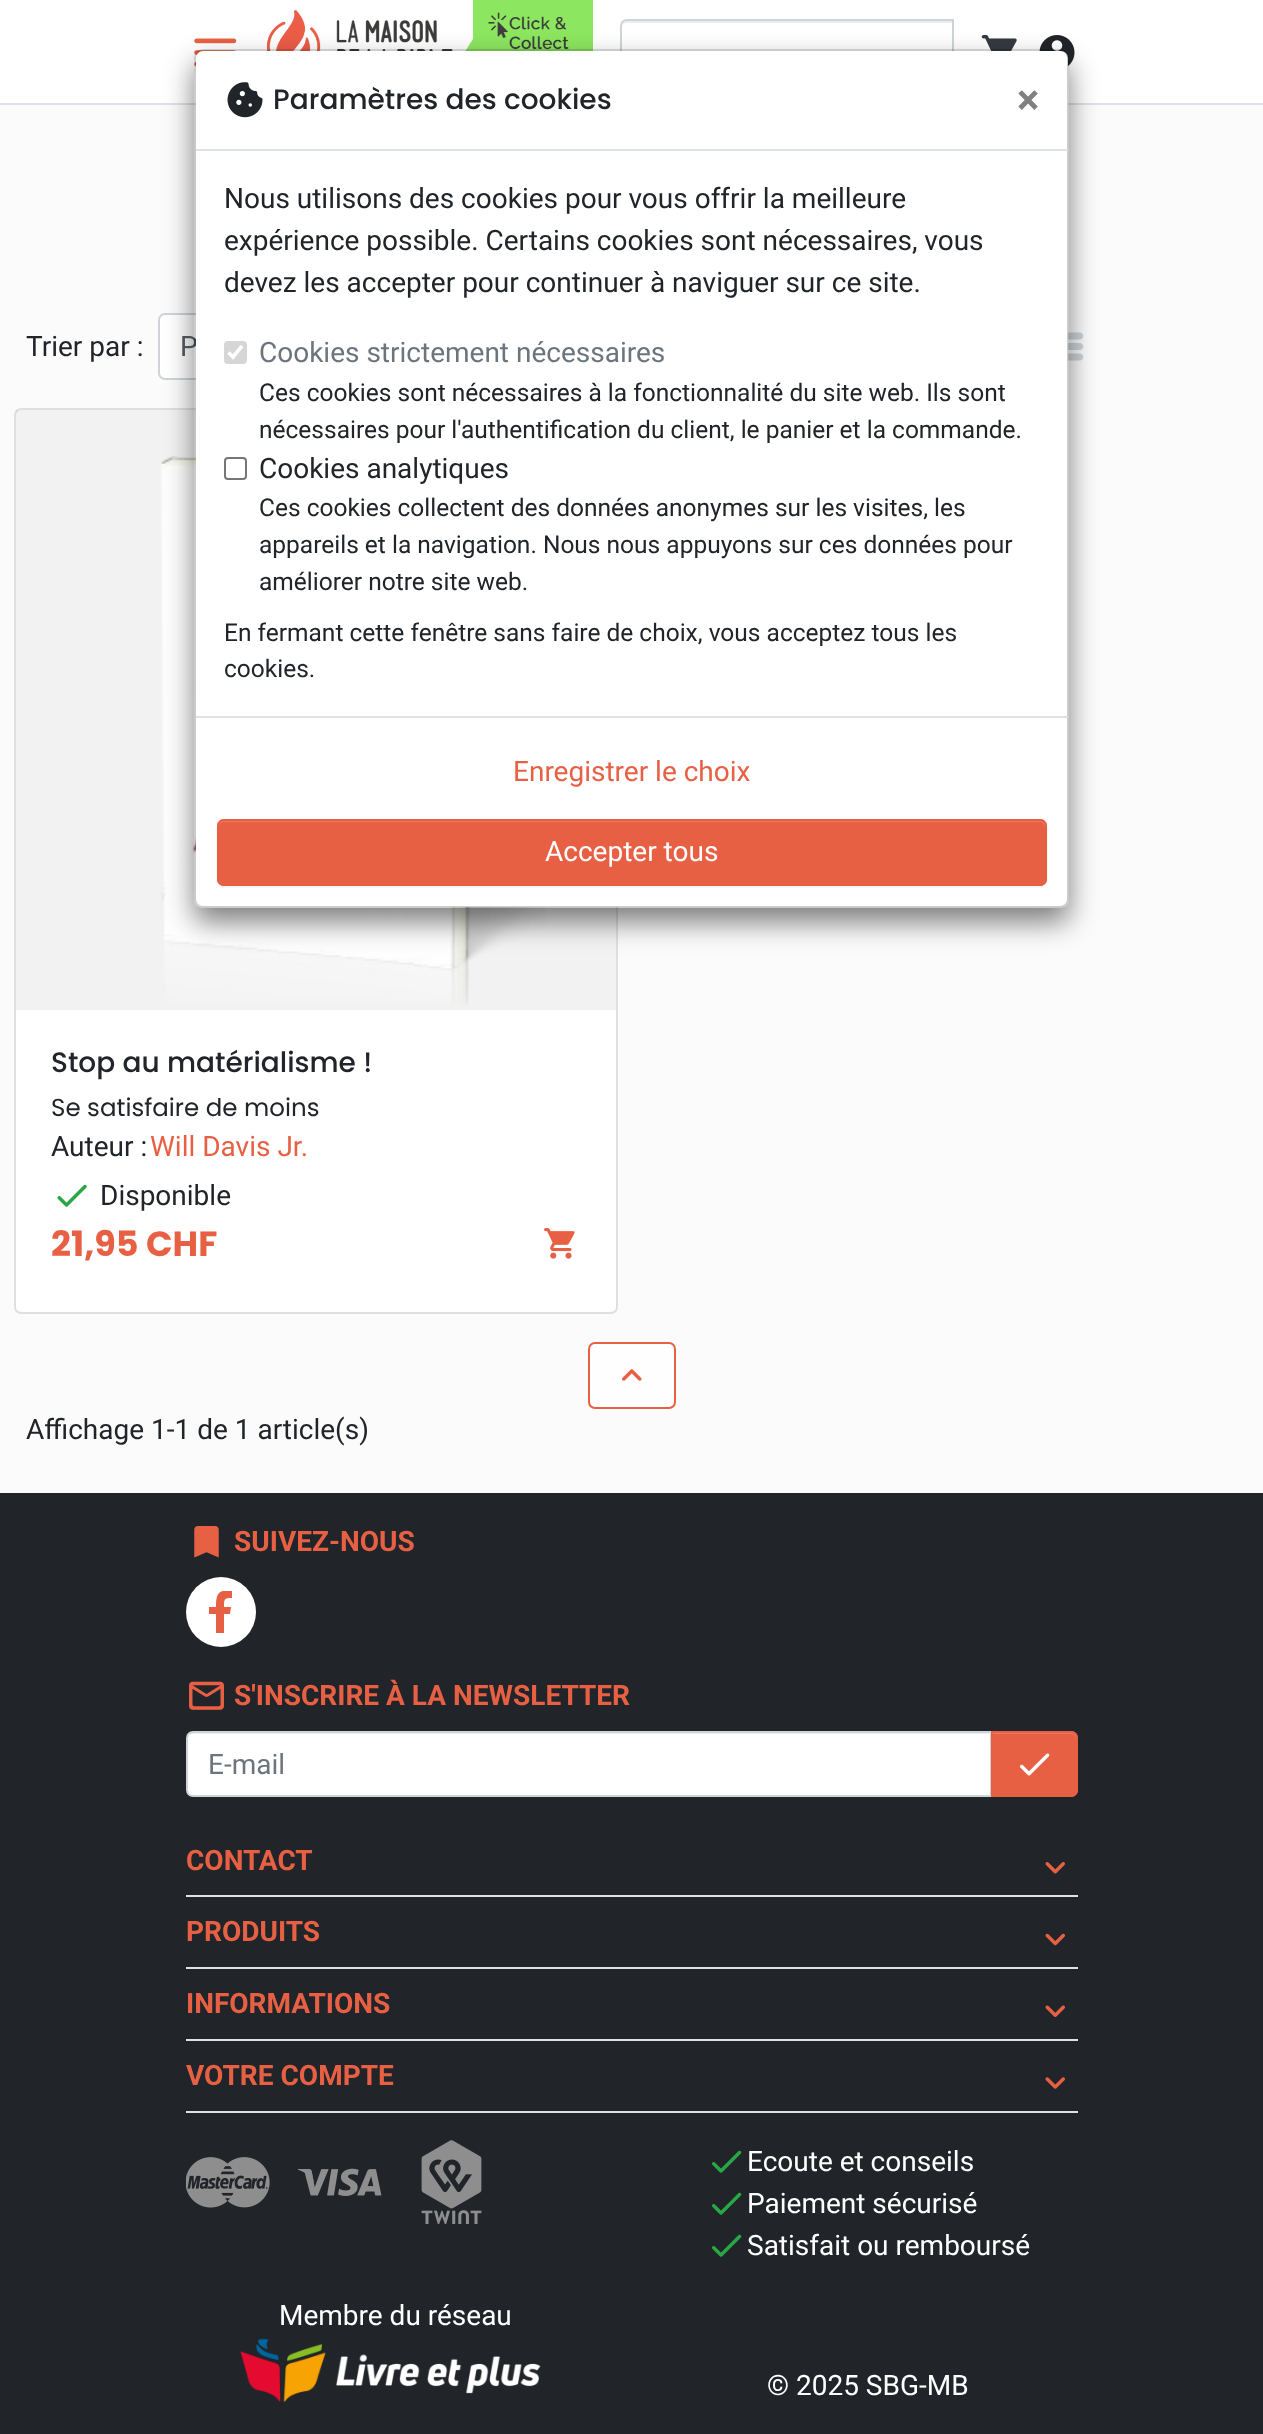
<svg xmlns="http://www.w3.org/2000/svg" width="1263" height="2434">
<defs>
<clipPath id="clip1"><path d="M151 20h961v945h-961zm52 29h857c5 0 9 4 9 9v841c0 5-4 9-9 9h-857c-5 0-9-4-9-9v-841c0-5 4-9 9-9z" clip-rule="evenodd"/></clipPath>
<clipPath id="clip2"><rect x="200" y="1591" width="42" height="42"/></clipPath>
</defs>
<rect width="100%" height="100%" fill="#fbfbfb"/>
<rect width="1263" height="103" fill="#fff"/>
<rect y="103" width="1263" height="2" fill="#dee2e6"/>
<image x="266" y="0" width="327" height="51" href="media/2.png"/>
<path d="M626 23h326v-2h-326c-3 0-5 2-5 5v2c0-3 3-5 5-5z" fill="#ececec"/>
<path d="M627 20h326v65h-326c-3.5 0-6-2.5-6-6v-53c0-3.5 2.5-6 6-6z" fill="none" stroke="#ced4da" stroke-width="2"/>
<image x="194" y="38" width="43" height="29" href="media/3.png"/>
<image x="981" y="35" width="36" height="16" href="media/4.png"/>
<image x="1039" y="35" width="36" height="31" href="media/5.png"/>
<rect x="159" y="314" width="388" height="65" rx="6" fill="#fff" stroke="#ced4da" stroke-width="2"/>
<image x="1068" y="332" width="16" height="29" href="media/6.png"/>
<rect x="15" y="409" width="602" height="904" rx="6" fill="#fff" stroke="#dfdfdf" stroke-width="2"/>
<rect x="16" y="410" width="600" height="600" fill="#0000000d"/>
<image x="160" y="456" width="386" height="550" href="media/7.png"/>
<g clip-path="url(#clip1)">
<rect x="194" y="63" width="875" height="859" rx="9" fill="#00000080" filter="blur(14px)"/>
</g>
<text x="180" y="356" style="font-family:Roboto;font-size:28px;fill:#495057">P</text>
<rect x="196" y="51" width="872" height="856" rx="7" fill="#fff"/>
<rect x="195" y="50" width="873" height="857" rx="8" fill="none" stroke="#00000033" stroke-width="2"/>
<rect x="196" y="149" width="872" height="2" fill="#dee2e6"/>
<image x="227" y="82" width="36" height="36" href="media/1.png"/>
<text x="273" y="109" style="font-family:Poppins;font-size:28px;font-weight:500;fill:#212529">Paramètres des cookies</text>
<text x="1017" y="114" style="font-family:Roboto;font-size:42px;font-weight:bold;fill:#808080">×</text>
<text x="224" y="208" style="font-family:Roboto;font-size:28px;fill:#212529">Nous utilisons des cookies pour vous offrir la meilleure</text>
<text x="224" y="250" style="font-family:Roboto;font-size:28px;fill:#212529">expérience possible. Certains cookies sont nécessaires, vous</text>
<text x="224" y="292" style="font-family:Roboto;font-size:28px;fill:#212529">devez les accepter pour continuer à naviguer sur ce site.</text>
<rect x="224" y="341" width="23" height="23" rx="4" fill="#d6d6d6"/>
<path d="M228.5 352.5l4.5 4.5l9-11" fill="none" stroke="#fff" stroke-width="3.6"/>
<text x="259" y="362" style="font-family:Roboto;font-size:28px;fill:#6c757d">Cookies strictement nécessaires</text>
<text x="259" y="401" style="font-family:Roboto;font-size:24.5px;fill:#212529">Ces cookies sont nécessaires à la fonctionnalité du site web. Ils sont</text>
<text x="259" y="438" style="font-family:Roboto;font-size:24.5px;fill:#212529">nécessaires pour l'authentification du client, le panier et la commande.</text>
<rect x="225" y="458" width="21" height="21" rx="3" fill="none" stroke="#767676" stroke-width="2"/>
<text x="259" y="478" style="font-family:Roboto;font-size:28px;fill:#212529">Cookies analytiques</text>
<text x="259" y="516" style="font-family:Roboto;font-size:24.5px;fill:#212529">Ces cookies collectent des données anonymes sur les visites, les</text>
<text x="259" y="553" style="font-family:Roboto;font-size:24.5px;fill:#212529">appareils et la navigation. Nous nous appuyons sur ces données pour</text>
<text x="259" y="590" style="font-family:Roboto;font-size:24.5px;fill:#212529">améliorer notre site web.</text>
<text x="224" y="641" style="font-family:Roboto;font-size:24.5px;fill:#212529">En fermant cette fenêtre sans faire de choix, vous acceptez tous les</text>
<text x="224" y="677" style="font-family:Roboto;font-size:24.5px;fill:#212529">cookies.</text>
<rect x="196" y="716" width="872" height="2" fill="#dee2e6"/>
<text x="513" y="781" style="font-family:Roboto;font-size:28px;fill:#e86044">Enregistrer le choix</text>
<rect x="217" y="821" width="830" height="66" rx="7" fill="#00000012" filter="blur(1px)"/>
<rect x="217" y="819" width="830" height="67" rx="7" fill="#e86044"/>
<path d="M224 822h816c2 0 5 3 5 6v-2c0-3-2-5-5-5h-816c-3 0-5 2-5 5v2c0-3 2-6 5-6z" fill="#eb7860"/>
<rect x="218" y="820" width="828" height="65" rx="6" fill="none" stroke="#e86044" stroke-width="2"/>
<text x="545" y="861" style="font-family:Roboto;font-size:28px;fill:#fff">Accepter tous</text>
<text x="26" y="356" style="font-family:Roboto;font-size:28px;fill:#212529">Trier par :</text>
<text x="51" y="1072" style="font-family:Poppins;font-size:28px;font-weight:500;fill:#212529">Stop au matérialisme !</text>
<text x="51" y="1116" style="font-family:Poppins;font-size:24.5px;fill:#212529">Se satisfaire de moins</text>
<text x="51" y="1156" style="font-family:Roboto;font-size:28px;fill:#212529">Auteur :</text>
<text x="150" y="1156" style="font-family:Roboto;font-size:28px;fill:#e86044">Will Davis Jr.</text>
<image x="57" y="1184" width="30" height="23" href="media/8.png"/>
<text x="100" y="1205" style="font-family:Roboto;font-size:28px;fill:#212529">Disponible</text>
<text x="51" y="1256" style="font-family:Poppins;font-size:35px;font-weight:bold;fill:#e86044">21,95 CHF</text>
<image x="544" y="1228" width="31" height="31" href="media/9.png"/>
<rect x="589" y="1343" width="86" height="65" rx="6" fill="#fefefe" stroke="#e86044" stroke-width="2"/>
<image x="622" y="1369" width="20" height="12" href="media/10.png"/>
<text x="26" y="1439" style="font-family:Roboto;font-size:28px;fill:#212529">Affichage 1-1 de 1 article(s)</text>
<rect y="1493" width="1263" height="941" fill="#212529"/>
<image x="194" y="1526" width="25" height="32" href="media/11.png"/>
<text x="234" y="1551" style="font-family:Roboto;font-size:28px;font-weight:bold;fill:#e86044">SUIVEZ-NOUS</text>
<circle cx="221" cy="1612" r="35" fill="#fff"/>
<g clip-path="url(#clip2)">
<path d="M230 1614l1-7h-7c0-8 0-9 8-9v-7c-14-2-16 3-16 16h-7v7h7v19h8v-19z" fill="#e86044"/>
</g>
<image x="189" y="1681" width="35" height="29" href="media/12.png"/>
<text x="234" y="1705" style="font-family:Roboto;font-size:28px;font-weight:bold;fill:#e86044">S'INSCRIRE À LA NEWSLETTER</text>
<path d="M192 1733h799v63h-799c-3 0-5-2-5-5v-53c0-3 2-5 5-5z" fill="#fff"/>
<path d="M192 1734h798v62h1v-63h-799c-4 0-5 4-5 7c0-3 3-6 5-6z" fill="#00000012"/>
<path d="M193 1732h798v64h-798c-3.5 0-6-2.5-6-6v-52c0-3.5 2.5-6 6-6z" fill="none" stroke="#ced4da" stroke-width="2"/>
<text x="208" y="1774" style="font-family:Roboto;font-size:28px;fill:#6c757d">E-mail</text>
<rect x="991" y="1733" width="87" height="66" rx="7" fill="#00000012" filter="blur(1px)"/>
<path d="M991 1731h80c4 0 7 3 7 7v52c0 4-3 7-7 7h-80z" fill="#e86044"/>
<path d="M992 1734h79c3 0 5 3 5 6v-2c0-3-2-5-5-5h-79z" fill="#eb7860"/>
<path d="M992 1732h79c3.5 0 6 2.5 6 6v52c0 3.5-2.5 6-6 6h-79z" fill="none" stroke="#e86044" stroke-width="2"/>
<image x="1020" y="1753" width="30" height="23" href="media/13.png"/>
<rect x="186" y="1895" width="892" height="2" fill="#dee2e6"/>
<text x="186" y="1870" style="font-family:Roboto;font-size:28px;font-weight:bold;fill:#e86044">CONTACT</text>
<image x="1045" y="1862" width="20" height="12" href="media/14.png"/>
<rect x="186" y="1967" width="892" height="2" fill="#dee2e6"/>
<text x="186" y="1941" style="font-family:Roboto;font-size:28px;font-weight:bold;fill:#e86044">PRODUITS</text>
<image x="1045" y="1933" width="20" height="13" href="media/15.png"/>
<rect x="186" y="2039" width="892" height="2" fill="#dee2e6"/>
<text x="186" y="2013" style="font-family:Roboto;font-size:28px;font-weight:bold;fill:#e86044">INFORMATIONS</text>
<image x="1045" y="2005" width="20" height="12" href="media/16.png"/>
<rect x="186" y="2111" width="892" height="2" fill="#dee2e6"/>
<text x="186" y="2085" style="font-family:Roboto;font-size:28px;font-weight:bold;fill:#e86044">VOTRE COMPTE</text>
<image x="1045" y="2077" width="20" height="12" href="media/17.png"/>
<image x="186" y="2157" width="84" height="51" href="media/18.png"/>
<image x="298" y="2168" width="84" height="28" href="media/19.png"/>
<image x="421" y="2140" width="61" height="84" href="media/20.png"/>
<image x="712" y="2150" width="30" height="23" href="media/21.png"/>
<text x="747" y="2171" style="font-family:Roboto;font-size:28px;fill:#fff">Ecoute et conseils</text>
<image x="712" y="2192" width="30" height="23" href="media/21.png"/>
<text x="747" y="2213" style="font-family:Roboto;font-size:28px;fill:#fff">Paiement sécurisé</text>
<image x="712" y="2234" width="30" height="23" href="media/21.png"/>
<text x="747" y="2255" style="font-family:Roboto;font-size:28px;fill:#fff">Satisfait ou remboursé</text>
<text x="279" y="2325" style="font-family:Roboto;font-size:28px;fill:#fff">Membre du réseau</text>
<image x="240" y="2338" width="301" height="64" href="media/22.png"/>
<text x="767" y="2395" style="font-family:Roboto;font-size:28px;fill:#fff">© 2025 SBG-MB</text>
</svg>
